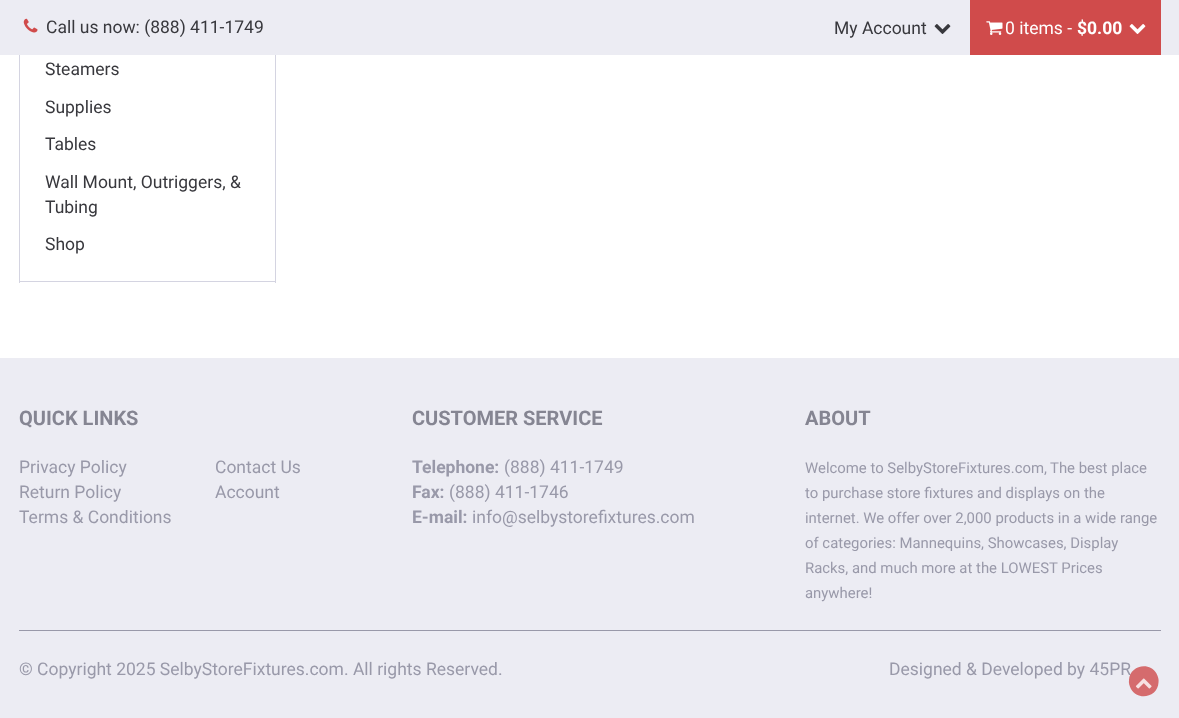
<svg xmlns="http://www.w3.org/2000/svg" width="1179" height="718">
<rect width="100%" height="100%" fill="#fff"/>
<rect width="1179" height="55" fill="#ececf3"/>
<image x="23" y="18" width="15" height="15" href="media/1.png"/>
<text x="46" y="33" style="font-family:Roboto;font-size:17.5px;fill:#38383d">Call us now: (888) 411-1749</text>
<text x="834" y="34" style="font-family:Roboto;font-size:17.5px;fill:#38383d">My Account</text>
<image x="934" y="24" width="17" height="10" href="media/2.png"/>
<rect x="970" width="191" height="55" fill="#d04b4b"/>
<image x="986" y="21" width="17" height="14" href="media/3.png"/>
<text x="1005" y="34" style="font-family:Roboto;font-size:17.5px;fill:#fff">0 items -</text>
<text x="1077" y="34" style="font-family:Roboto;font-size:17.5px;font-weight:bold;fill:#fff">$0.00</text>
<image x="1129" y="24" width="17" height="10" href="media/4.png"/>
<rect x="275" y="55" width="1" height="228" fill="#d4d4e1"/>
<rect x="19" y="281" width="257" height="1" fill="#d4d4e1"/>
<rect x="19" y="55" width="1" height="228" fill="#d4d4e1"/>
<text x="45" y="75" style="font-family:Roboto;font-size:17.5px;fill:#38383d">Steamers</text>
<text x="45" y="113" style="font-family:Roboto;font-size:17.5px;fill:#38383d">Supplies</text>
<text x="45" y="150" style="font-family:Roboto;font-size:17.5px;fill:#38383d">Tables</text>
<text x="45" y="188" style="font-family:Roboto;font-size:17.5px;fill:#38383d">Wall Mount, Outriggers, &amp;</text>
<text x="45" y="213" style="font-family:Roboto;font-size:17.5px;fill:#38383d">Tubing</text>
<text x="45" y="250" style="font-family:Roboto;font-size:17.5px;fill:#38383d">Shop</text>
<rect y="358" width="1179" height="360" fill="#ececf3"/>
<text x="19" y="425" style="font-family:Roboto;font-size:20px;font-weight:bold;fill:#858592">QUICK LINKS</text>
<text x="19" y="473" style="font-family:Roboto;font-size:17.5px;fill:#9999a9">Privacy Policy</text>
<text x="19" y="498" style="font-family:Roboto;font-size:17.5px;fill:#9999a9">Return Policy</text>
<text x="19" y="523" style="font-family:Roboto;font-size:17.5px;fill:#9999a9">Terms &amp; Conditions</text>
<text x="215" y="473" style="font-family:Roboto;font-size:17.5px;fill:#9999a9">Contact Us</text>
<text x="215" y="498" style="font-family:Roboto;font-size:17.5px;fill:#9999a9">Account</text>
<text x="412" y="425" style="font-family:Roboto;font-size:20px;font-weight:bold;fill:#858592">CUSTOMER SERVICE</text>
<text x="412" y="473" style="font-family:Roboto;font-size:17.5px;font-weight:bold;fill:#9999a9">Telephone:</text>
<text x="504" y="473" style="font-family:Roboto;font-size:17.5px;fill:#9999a9">(888) 411-1749</text>
<text x="412" y="498" style="font-family:Roboto;font-size:17.5px;font-weight:bold;fill:#9999a9">Fax:</text>
<text x="449" y="498" style="font-family:Roboto;font-size:17.5px;fill:#9999a9">(888) 411-1746</text>
<text x="412" y="523" style="font-family:Roboto;font-size:17.5px;font-weight:bold;fill:#9999a9">E-mail:</text>
<text x="472" y="523" style="font-family:Roboto;font-size:17.5px;fill:#9999a9">info@selbystorefixtures.com</text>
<text x="805" y="425" style="font-family:Roboto;font-size:20px;font-weight:bold;fill:#858592">ABOUT</text>
<text x="805" y="473" style="font-family:Roboto;font-size:14.9px;fill:#9999a9">Welcome to SelbyStoreFixtures.com,</text>
<text x="1050" y="473" style="font-family:Roboto;font-size:14.9px;fill:#9999a9">The best place</text>
<text x="805" y="498" style="font-family:Roboto;font-size:14.9px;fill:#9999a9">to purchase store fixtures and displays on the</text>
<text x="805" y="523" style="font-family:Roboto;font-size:14.9px;fill:#9999a9">internet. We offer over 2,000 products in a wide range</text>
<text x="805" y="548" style="font-family:Roboto;font-size:14.9px;fill:#9999a9">of categories: Mannequins, Showcases, Display</text>
<text x="805" y="573" style="font-family:Roboto;font-size:14.9px;fill:#9999a9">Racks, and much more at the LOWEST Prices</text>
<text x="805" y="598" style="font-family:Roboto;font-size:14.9px;fill:#9999a9">anywhere!</text>
<rect x="19" y="630" width="1142" height="1" fill="#9999a9"/>
<text x="19" y="675" style="font-family:Roboto;font-size:17.5px;fill:#9999a9">© Copyright 2025 SelbyStoreFixtures.com. All rights Reserved.</text>
<text x="889" y="675" style="font-family:Roboto;font-size:17.5px;fill:#9999a9">Designed &amp; Developed by 45PR</text>
<path d="M1156.5 673.5c1.5 3 2.5 6 2 9c-.5 14.5-20.5 19-27.5 6.5c-1.5-3-2.5-6-2-9c.5-14.5 20.5-19 27.5-6.5z" fill="#d04b4bcc"/>
<image x="1135" y="678" width="17" height="11" href="media/5.png"/>
</svg>
